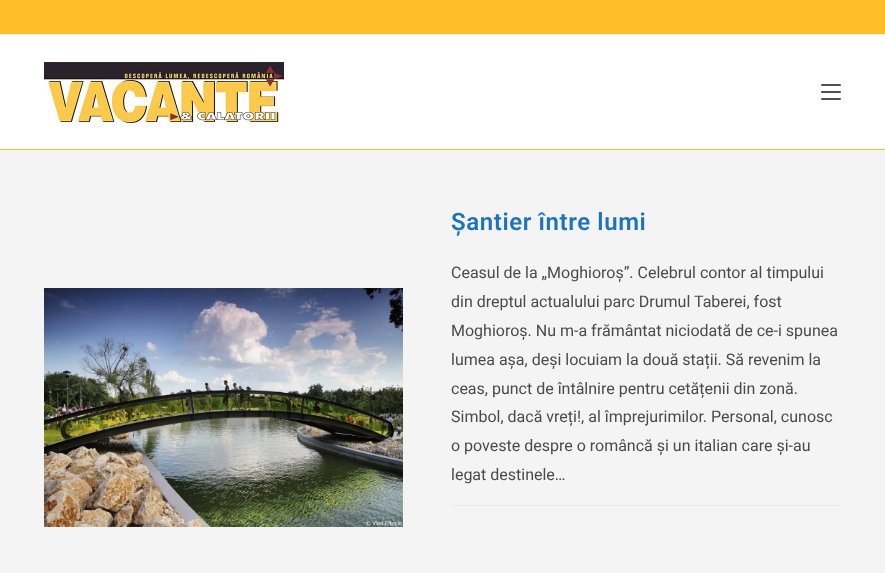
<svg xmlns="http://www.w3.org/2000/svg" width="885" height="573">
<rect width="100%" height="100%" fill="#f4f4f4"/>
<rect width="885" height="34" fill="#ffbe28"/>
<rect y="34" width="885" height="1" fill="#f1f1f1"/>
<rect y="35" width="885" height="114" fill="#fff"/>
<rect y="149" width="885" height="1" fill="#ffbe28"/>
<image x="44" y="59" width="240" height="66" href="media/1.png"/>
<rect x="821" y="91" width="20" height="2" rx="1" fill="#515151"/>
<rect x="821" y="84" width="20" height="2" rx="1" fill="#515151"/>
<rect x="821" y="98" width="20" height="2" rx="1" fill="#515151"/>
<rect x="44" y="557" width="797" height="1" fill="#f1f1f1"/>
<image x="44" y="288" width="359" height="239" href="media/2.png"/>
<text x="451" y="230" style="font-family:Roboto;font-size:24px;font-weight:600;letter-spacing:0.6px;fill:#1e73be">Șantier între lumi</text>
<text x="451" y="278" style="font-family:Roboto;font-size:16px;fill:#4a4a4a">Ceasul de la „Moghioroș”. Celebrul contor al timpului</text>
<text x="451" y="307" style="font-family:Roboto;font-size:16px;fill:#4a4a4a">din dreptul actualului parc Drumul Taberei, fost</text>
<text x="451" y="336" style="font-family:Roboto;font-size:16px;fill:#4a4a4a">Moghioroș. Nu m-a frământat niciodată de ce-i spunea</text>
<text x="451" y="365" style="font-family:Roboto;font-size:16px;fill:#4a4a4a">lumea așa, deși locuiam la două stații. Să revenim la</text>
<text x="451" y="394" style="font-family:Roboto;font-size:16px;fill:#4a4a4a">ceas, punct de întâlnire pentru cetățenii din zonă.</text>
<text x="451" y="422" style="font-family:Roboto;font-size:16px;fill:#4a4a4a">Simbol, dacă vreți!, al împrejurimilor. Personal, cunosc</text>
<text x="451" y="451" style="font-family:Roboto;font-size:16px;fill:#4a4a4a">o poveste despre o româncă și un italian care și-au</text>
<text x="451" y="480" style="font-family:Roboto;font-size:16px;fill:#4a4a4a">legat destinele…</text>
<rect x="451" y="505" width="390" height="1" fill="#e9e9e9"/>
</svg>
